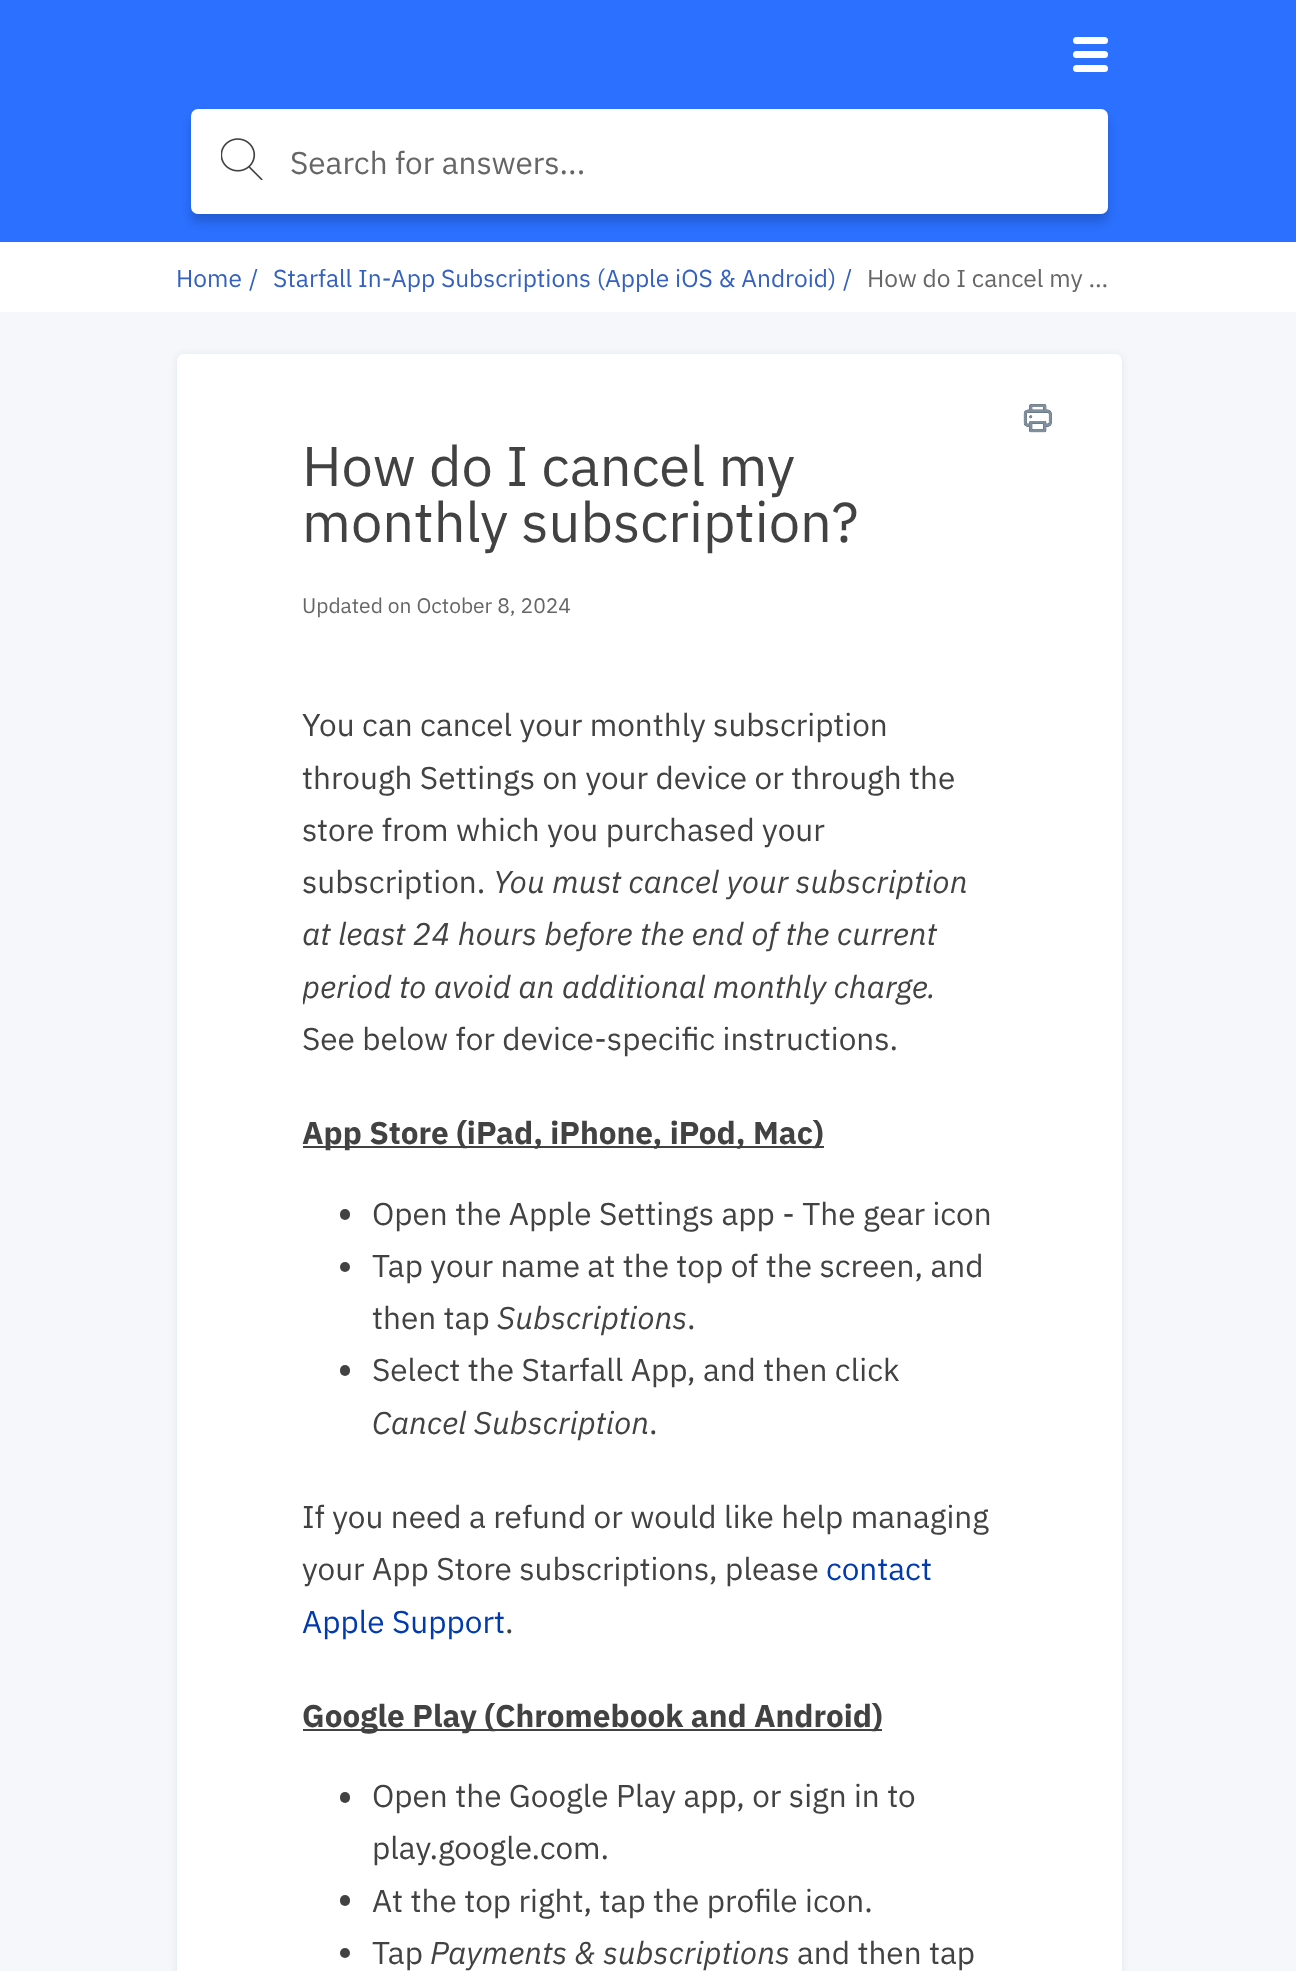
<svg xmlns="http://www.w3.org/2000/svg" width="1296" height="1971">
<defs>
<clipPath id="clip1"><rect x="303" y="700" width="693" height="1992"/></clipPath>
</defs>
<rect width="100%" height="100%" fill="#f5f7fa"/>
<rect width="1296" height="242" fill="#2b70fe"/>
<rect x="1073" y="37" width="35" height="7" rx="3.5" fill="#fff"/>
<rect x="1073" y="51" width="35" height="7" rx="3.5" fill="#fff"/>
<rect x="1073" y="65" width="35" height="7" rx="3.5" fill="#fff"/>
<rect x="191" y="117" width="917" height="105" rx="7" fill="#0000002b" filter="blur(5px)"/>
<rect x="191" y="109" width="917" height="105" rx="7" fill="#fff"/>
<image x="221" y="138" width="42" height="42" href="media/1.png"/>
<text x="290" y="174" style="font-family:IBM Plex Sans;font-size:31.5px;fill:#666">Search for answers...</text>
<rect y="242" width="1296" height="70" fill="#fff"/>
<text x="176" y="287" style="font-family:IBM Plex Sans;font-size:24.5px;fill:#3461bf">Home</text>
<text x="249" y="287" style="font-family:IBM Plex Sans;font-size:24.5px;fill:#3461bf">/</text>
<text x="273" y="287" style="font-family:IBM Plex Sans;font-size:24.5px;fill:#3461bf">Starfall In-App Subscriptions (Apple iOS &amp; Android)</text>
<text x="843" y="287" style="font-family:IBM Plex Sans;font-size:24.5px;fill:#3461bf">/</text>
<text x="867" y="287" style="font-family:IBM Plex Sans;font-size:24.5px;fill:#666">How do I cancel my …</text>
<rect x="177" y="355" width="945" height="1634" rx="7" fill="#dfe5ee" filter="blur(3.5px)"/>
<rect x="177" y="354" width="945" height="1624" rx="7" fill="#fff"/>
<image x="1023" y="404" width="29" height="29" href="media/2.png"/>
<text x="302" y="486" style="font-family:IBM Plex Sans;font-size:56px;fill:#424242">How do I cancel my</text>
<text x="302" y="542" style="font-family:IBM Plex Sans;font-size:56px;fill:#424242">monthly subscription?</text>
<text x="302" y="613" style="font-family:IBM Plex Sans;font-size:21px;fill:#666">Updated on October 8, 2024</text>
<text x="302" y="736" style="font-family:IBM Plex Sans;font-size:31.5px;fill:#424242">You can cancel your monthly subscription</text>
<text x="302" y="789" style="font-family:IBM Plex Sans;font-size:31.5px;fill:#424242">through Settings on your device or through the</text>
<text x="302" y="841" style="font-family:IBM Plex Sans;font-size:31.5px;fill:#424242">store from which you purchased your</text>
<text x="302" y="893" style="font-family:IBM Plex Sans;font-size:31.5px;fill:#424242">subscription.</text>
<text x="493" y="893" style="font-family:IBM Plex Sans;font-size:31.5px;font-style:italic;fill:#424242">You must cancel your subscription</text>
<text x="302" y="945" style="font-family:IBM Plex Sans;font-size:31.5px;font-style:italic;fill:#424242">at least 24 hours before the end of the current</text>
<g clip-path="url(#clip1)">
<text x="302" y="998" style="font-family:IBM Plex Sans;font-size:31.5px;font-style:italic;fill:#424242">period to avoid an additional monthly charge.</text>
</g>
<text x="302" y="1050" style="font-family:IBM Plex Sans;font-size:31.5px;fill:#424242">See below for device-specific instructions.</text>
<rect x="303" y="1146" width="521" height="2" fill="#424242"/>
<text x="302" y="1144" style="font-family:IBM Plex Sans;font-size:31.5px;font-weight:bold;fill:#424242">App Store (iPad, iPhone, iPod, Mac)</text>
<rect x="340" y="1209" width="10" height="11" rx="5" fill="#424242"/>
<text x="372" y="1225" style="font-family:IBM Plex Sans;font-size:31.5px;fill:#424242">Open the Apple Settings app - The gear icon</text>
<circle cx="345" cy="1267" r="5" fill="#424242"/>
<text x="372" y="1277" style="font-family:IBM Plex Sans;font-size:31.5px;fill:#424242">Tap your name at the top of the screen, and</text>
<text x="372" y="1329" style="font-family:IBM Plex Sans;font-size:31.5px;fill:#424242">then tap</text>
<text x="497" y="1329" style="font-family:IBM Plex Sans;font-size:31.5px;font-style:italic;fill:#424242">Subscriptions</text>
<text x="687" y="1329" style="font-family:IBM Plex Sans;font-size:31.5px;fill:#424242">.</text>
<rect x="340" y="1365" width="10" height="11" rx="5" fill="#424242"/>
<text x="372" y="1381" style="font-family:IBM Plex Sans;font-size:31.5px;fill:#424242">Select the Starfall App, and then click</text>
<text x="372" y="1434" style="font-family:IBM Plex Sans;font-size:31.5px;font-style:italic;fill:#424242">Cancel Subscription</text>
<text x="649" y="1434" style="font-family:IBM Plex Sans;font-size:31.5px;fill:#424242">.</text>
<text x="302" y="1528" style="font-family:IBM Plex Sans;font-size:31.5px;fill:#424242">If you need a refund or would like help managing</text>
<text x="302" y="1580" style="font-family:IBM Plex Sans;font-size:31.5px;fill:#424242">your App Store subscriptions, please</text>
<text x="826" y="1580" style="font-family:IBM Plex Sans;font-size:31.5px;fill:#013aaf">contact</text>
<text x="302" y="1633" style="font-family:IBM Plex Sans;font-size:31.5px;fill:#013aaf">Apple Support</text>
<text x="505" y="1633" style="font-family:IBM Plex Sans;font-size:31.5px;fill:#424242">.</text>
<rect x="303" y="1729" width="192" height="2" fill="#424242"/>
<text x="302" y="1727" style="font-family:IBM Plex Sans;font-size:31.5px;font-weight:bold;fill:#424242">Google Play (Chromebook and</text>
<rect x="495" y="1729" width="387" height="2" fill="#424242"/>
<text x="754" y="1727" style="font-family:IBM Plex Sans;font-size:31.5px;font-weight:bold;fill:#424242">Android)</text>
<rect x="340" y="1792" width="10" height="11" rx="5" fill="#424242"/>
<text x="372" y="1807" style="font-family:IBM Plex Sans;font-size:31.5px;fill:#424242">Open the Google Play app, or sign in to</text>
<text x="372" y="1859" style="font-family:IBM Plex Sans;font-size:31.5px;fill:#424242">play.google.com.</text>
<rect x="340" y="1895" width="10" height="11" rx="5" fill="#424242"/>
<text x="372" y="1912" style="font-family:IBM Plex Sans;font-size:31.5px;fill:#424242">At the top right, tap the profile icon.</text>
<circle cx="345" cy="1953" r="5" fill="#424242"/>
<text x="372" y="1964" style="font-family:IBM Plex Sans;font-size:31.5px;fill:#424242">Tap</text>
<text x="430" y="1964" style="font-family:IBM Plex Sans;font-size:31.5px;font-style:italic;fill:#424242">Payments &amp; subscriptions</text>
<text x="797" y="1964" style="font-family:IBM Plex Sans;font-size:31.5px;fill:#424242">and then tap</text>
</svg>
